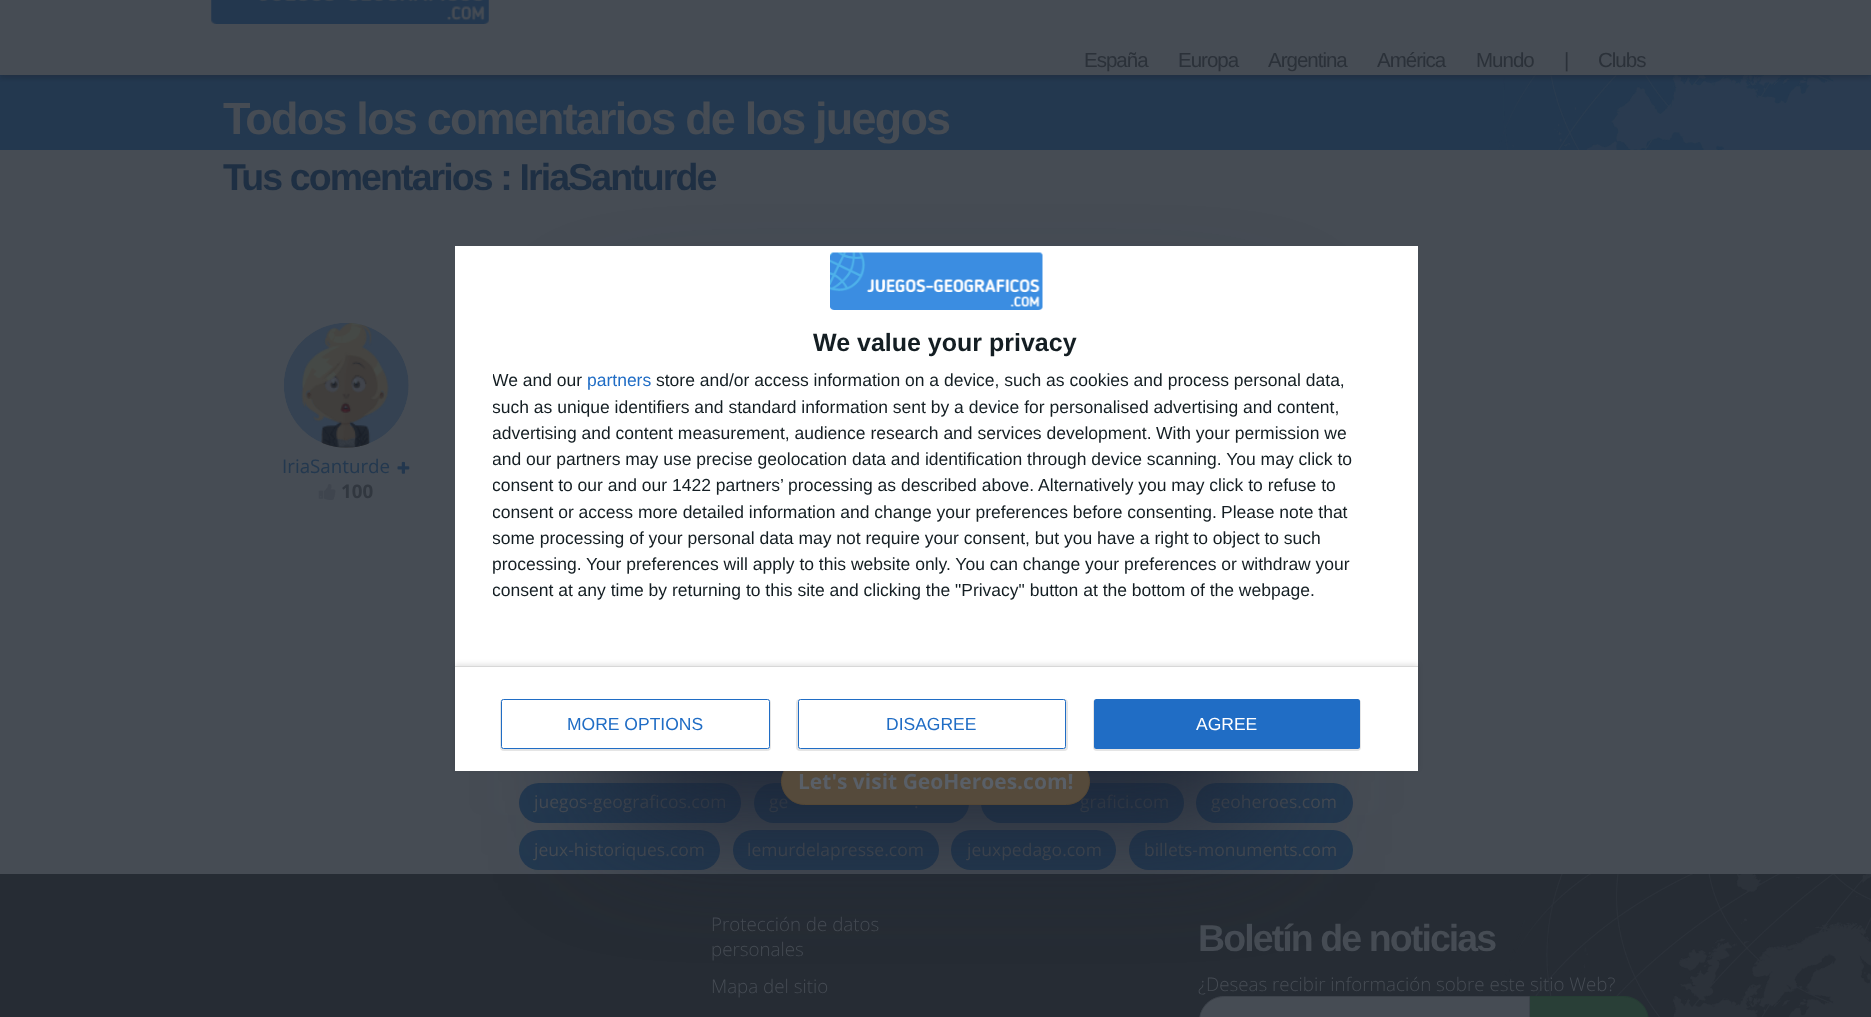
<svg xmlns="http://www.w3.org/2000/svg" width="1871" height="1017">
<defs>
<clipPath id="clip1"><rect x="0" y="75" width="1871" height="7"/></clipPath>
<clipPath id="clip2"><rect x="493" y="368" width="887" height="236"/></clipPath>
<clipPath id="clip3"><path d="M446 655h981v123h-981zm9 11h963v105h-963z" clip-rule="evenodd"/></clipPath>
</defs>
<rect width="100%" height="100%" fill="#464c54"/>
<rect y="75" width="1871" height="75" fill="#23384f"/>
<image x="1497" y="75" width="374" height="75" href="media/2.png"/>
<g clip-path="url(#clip1)">
<rect y="-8" width="1871" height="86" fill="#191f274d" filter="blur(2.5px)"/>
</g>
<image x="211" y="0" width="278" height="24" href="media/1.png"/>
<text x="1084" y="67" style="font-family:Liberation Sans;font-size:20.5px;letter-spacing:-1px;fill:#2b3139">España</text>
<text x="1178" y="67" style="font-family:Liberation Sans;font-size:20.5px;letter-spacing:-1px;fill:#2b3139">Europa</text>
<text x="1268" y="67" style="font-family:Liberation Sans;font-size:20.5px;letter-spacing:-1px;fill:#2b3139">Argentina</text>
<text x="1377" y="67" style="font-family:Liberation Sans;font-size:20.5px;letter-spacing:-1px;fill:#2b3139">América</text>
<text x="1476" y="67" style="font-family:Liberation Sans;font-size:20.5px;letter-spacing:-1px;fill:#2b3139">Mundo</text>
<text x="1564" y="67" style="font-family:Liberation Sans;font-size:20.5px;letter-spacing:-1px;fill:#2b3139">|</text>
<text x="1598" y="67" style="font-family:Liberation Sans;font-size:20.5px;letter-spacing:-1px;fill:#2b3139">Clubs</text>
<text x="223" y="134" style="font-family:Liberation Sans;font-size:45px;font-weight:bold;letter-spacing:-1.8px;fill:#464c54">Todos los comentarios de los juegos</text>
<text x="223" y="190" style="font-family:Liberation Sans;font-size:37.5px;font-weight:bold;letter-spacing:-1.9px;fill:#1e2f43">Tus comentarios : IriaSanturde</text>
<image x="284" y="323" width="125" height="125" href="media/3.png"/>
<image x="306" y="352" width="80" height="96" href="media/5.png"/>
<image x="323" y="361" width="44" height="32" href="media/6.png"/>
<image x="340" y="402" width="12" height="11" href="media/8.png"/>
<image x="321" y="421" width="50" height="27" href="media/9.png"/>
<image x="301" y="323" width="88" height="99" href="media/4.png"/>
<image x="342" y="393" width="8" height="6" href="media/7.png"/>
<text x="282" y="473" style="font-family:Open Sans;font-size:18.75px;fill:#23384f">IriaSanturde</text>
<image x="397" y="461" width="13" height="13" href="media/10.png"/>
<image x="318" y="484" width="18" height="16" href="media/11.png"/>
<text x="341" y="498" style="font-family:Open Sans;font-size:18.75px;font-weight:bold;fill:#31373f">100</text>
<rect x="519" y="783" width="222" height="40" rx="20" fill="#23384f"/>
<text x="534" y="808" style="font-family:Open Sans;font-size:17.5px;fill:#464c54">juegos-geograficos.com</text>
<rect x="754" y="783" width="215" height="40" rx="20" fill="#23384f"/>
<text x="769" y="808" style="font-family:Open Sans;font-size:17.5px;fill:#464c54">ge</text>
<text x="914" y="808" style="font-family:Open Sans;font-size:17.5px;fill:#464c54">.</text>
<rect x="981" y="783" width="203" height="40" rx="20" fill="#23384f"/>
<text x="1080" y="808" style="font-family:Open Sans;font-size:17.5px;fill:#464c54">grafici.com</text>
<rect x="1196" y="783" width="157" height="40" rx="20" fill="#23384f"/>
<text x="1211" y="808" style="font-family:Open Sans;font-size:17.5px;fill:#464c54">geoheroes.com</text>
<rect x="519" y="830" width="201" height="40" rx="20" fill="#23384f"/>
<text x="534" y="856" style="font-family:Open Sans;font-size:17.5px;fill:#464c54">jeux-historiques.com</text>
<rect x="733" y="830" width="206" height="40" rx="20" fill="#23384f"/>
<text x="747" y="856" style="font-family:Open Sans;font-size:17.5px;fill:#464c54">lemurdelapresse.com</text>
<rect x="951" y="830" width="165" height="40" rx="20" fill="#23384f"/>
<text x="967" y="856" style="font-family:Open Sans;font-size:17.5px;fill:#464c54">jeuxpedago.com</text>
<rect x="1129" y="830" width="224" height="40" rx="20" fill="#23384f"/>
<text x="1144" y="856" style="font-family:Open Sans;font-size:17.5px;fill:#464c54">billets-monuments.com</text>
<rect y="874" width="1871" height="143" fill="#262c34"/>
<image x="1505" y="874" width="366" height="143" href="media/12.png"/>
<text x="711" y="931" style="font-family:Open Sans;font-size:18.75px;font-weight:300;fill:#464c54">Protección de datos</text>
<text x="711" y="956" style="font-family:Open Sans;font-size:18.75px;font-weight:300;fill:#464c54">personales</text>
<text x="711" y="993" style="font-family:Open Sans;font-size:18.75px;font-weight:300;fill:#464c54">Mapa del sitio</text>
<text x="1198" y="951" style="font-family:Liberation Sans;font-size:37.5px;font-weight:bold;letter-spacing:-1.9px;fill:#464c54">Boletín de noticias</text>
<text x="1198" y="991" style="font-family:Open Sans;font-size:18.75px;font-weight:300;fill:#464c54">¿Deseas recibir información sobre este sitio Web?</text>
<path d="M1529.5 996.5h94.5c13.5 0 24.5 11 24.5 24.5v-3c0 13.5-11 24.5-24.5 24.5h-94.5z" fill="#293f37" stroke="#263d34"/>
<path d="M1224 996.5h305.5v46h-305.5c-13.5 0-24.5-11-24.5-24.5v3c0-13.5 11-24.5 24.5-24.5z" fill="#464c54" stroke="#3d434b"/>
<rect x="618" y="353" width="637" height="462" rx="13" fill="#1b2435" filter="blur(62.5px)"/>
<rect x="781.5" y="758.5" width="308" height="46" rx="23" fill="#554a3b" stroke="#544735"/>
<rect x="455" y="246" width="963" height="525" fill="#fff"/>
<image x="830" y="252" width="213" height="58" href="media/13.png"/>
<text x="813" y="351" style="font-family:Liberation Sans;font-size:25px;font-weight:bold;fill:#141e23">We value your privacy</text>
<g clip-path="url(#clip2)">
<text x="492" y="386" style="font-family:Liberation Sans;font-size:17.5px;fill:#141e23">We and our</text>
</g>
<text x="587" y="386" style="font-family:Liberation Sans;font-size:17.5px;fill:#206dc5">partners</text>
<text x="656" y="386" style="font-family:Liberation Sans;font-size:17.5px;fill:#141e23">store and/or access information on a device, such as cookies and process personal data,</text>
<g clip-path="url(#clip2)">
<text x="492" y="413" style="font-family:Liberation Sans;font-size:17.5px;fill:#141e23">such as unique identifiers and standard information sent by a device for personalised advertising and content,</text>
<text x="492" y="439" style="font-family:Liberation Sans;font-size:17.5px;fill:#141e23">advertising and content measurement, audience research and services development.</text>
</g>
<text x="1156" y="439" style="font-family:Liberation Sans;font-size:17.5px;fill:#141e23">With your permission we</text>
<g clip-path="url(#clip2)">
<text x="492" y="465" style="font-family:Liberation Sans;font-size:17.5px;fill:#141e23">and our partners may use precise geolocation data and identification through device scanning. You may click to</text>
<text x="492" y="491" style="font-family:Liberation Sans;font-size:17.5px;fill:#141e23">consent to our and our</text>
</g>
<text x="672" y="491" style="font-family:Liberation Sans;font-size:17.5px;fill:#141e23">1422 partners’ processing as described above. Alternatively you may click to refuse to</text>
<g clip-path="url(#clip2)">
<text x="492" y="518" style="font-family:Liberation Sans;font-size:17.5px;fill:#141e23">consent or access more detailed information and change your preferences before consenting.</text>
</g>
<text x="1221" y="518" style="font-family:Liberation Sans;font-size:17.5px;fill:#141e23">Please note that</text>
<g clip-path="url(#clip2)">
<text x="492" y="544" style="font-family:Liberation Sans;font-size:17.5px;fill:#141e23">some processing of your personal data may not require your consent, but you have a right to object to such</text>
</g>
<text x="492" y="570" style="font-family:Liberation Sans;font-size:17.5px;fill:#141e23">processing. Your preferences will apply to this website only. You can change your preferences or withdraw your</text>
<g clip-path="url(#clip2)">
<text x="492" y="596" style="font-family:Liberation Sans;font-size:17.5px;fill:#141e23">consent at any time by returning to this site and clicking the "Privacy" button at the bottom of the webpage.</text>
</g>
<g clip-path="url(#clip3)">
<rect x="455" y="664" width="963" height="105" fill="#0000001a" filter="blur(2.5px)"/>
</g>
<rect x="455" y="666" width="963" height="1" fill="#d8d8d8"/>
<rect x="500" y="699" width="271" height="52" rx="4" fill="#0000001a" filter="blur(0.5px)"/>
<rect x="501.5" y="699.5" width="268" height="49" rx="2" fill="#fff" stroke="#206dc5"/>
<text x="567" y="730" style="font-family:Liberation Sans;font-size:17.5px;fill:#206dc5">MORE OPTIONS</text>
<rect x="796" y="699" width="272" height="52" rx="4" fill="#0000001a" filter="blur(0.5px)"/>
<rect x="798.5" y="699.5" width="267" height="49" rx="2" fill="#fff" stroke="#206dc5"/>
<text x="886" y="730" style="font-family:Liberation Sans;font-size:17.5px;fill:#206dc5">DISAGREE</text>
<rect x="1093" y="699" width="268" height="52" rx="4" fill="#0000001a" filter="blur(0.5px)"/>
<rect x="1094" y="699" width="266" height="50" rx="2.5" fill="#206dc5"/>
<text x="1196" y="730" style="font-family:Liberation Sans;font-size:17.5px;fill:#fff">AGREE</text>
<text x="798" y="789" style="font-family:Open Sans;font-size:21px;font-weight:bold;fill:#595f67">Let's visit GeoHeroes.com!</text>
</svg>
